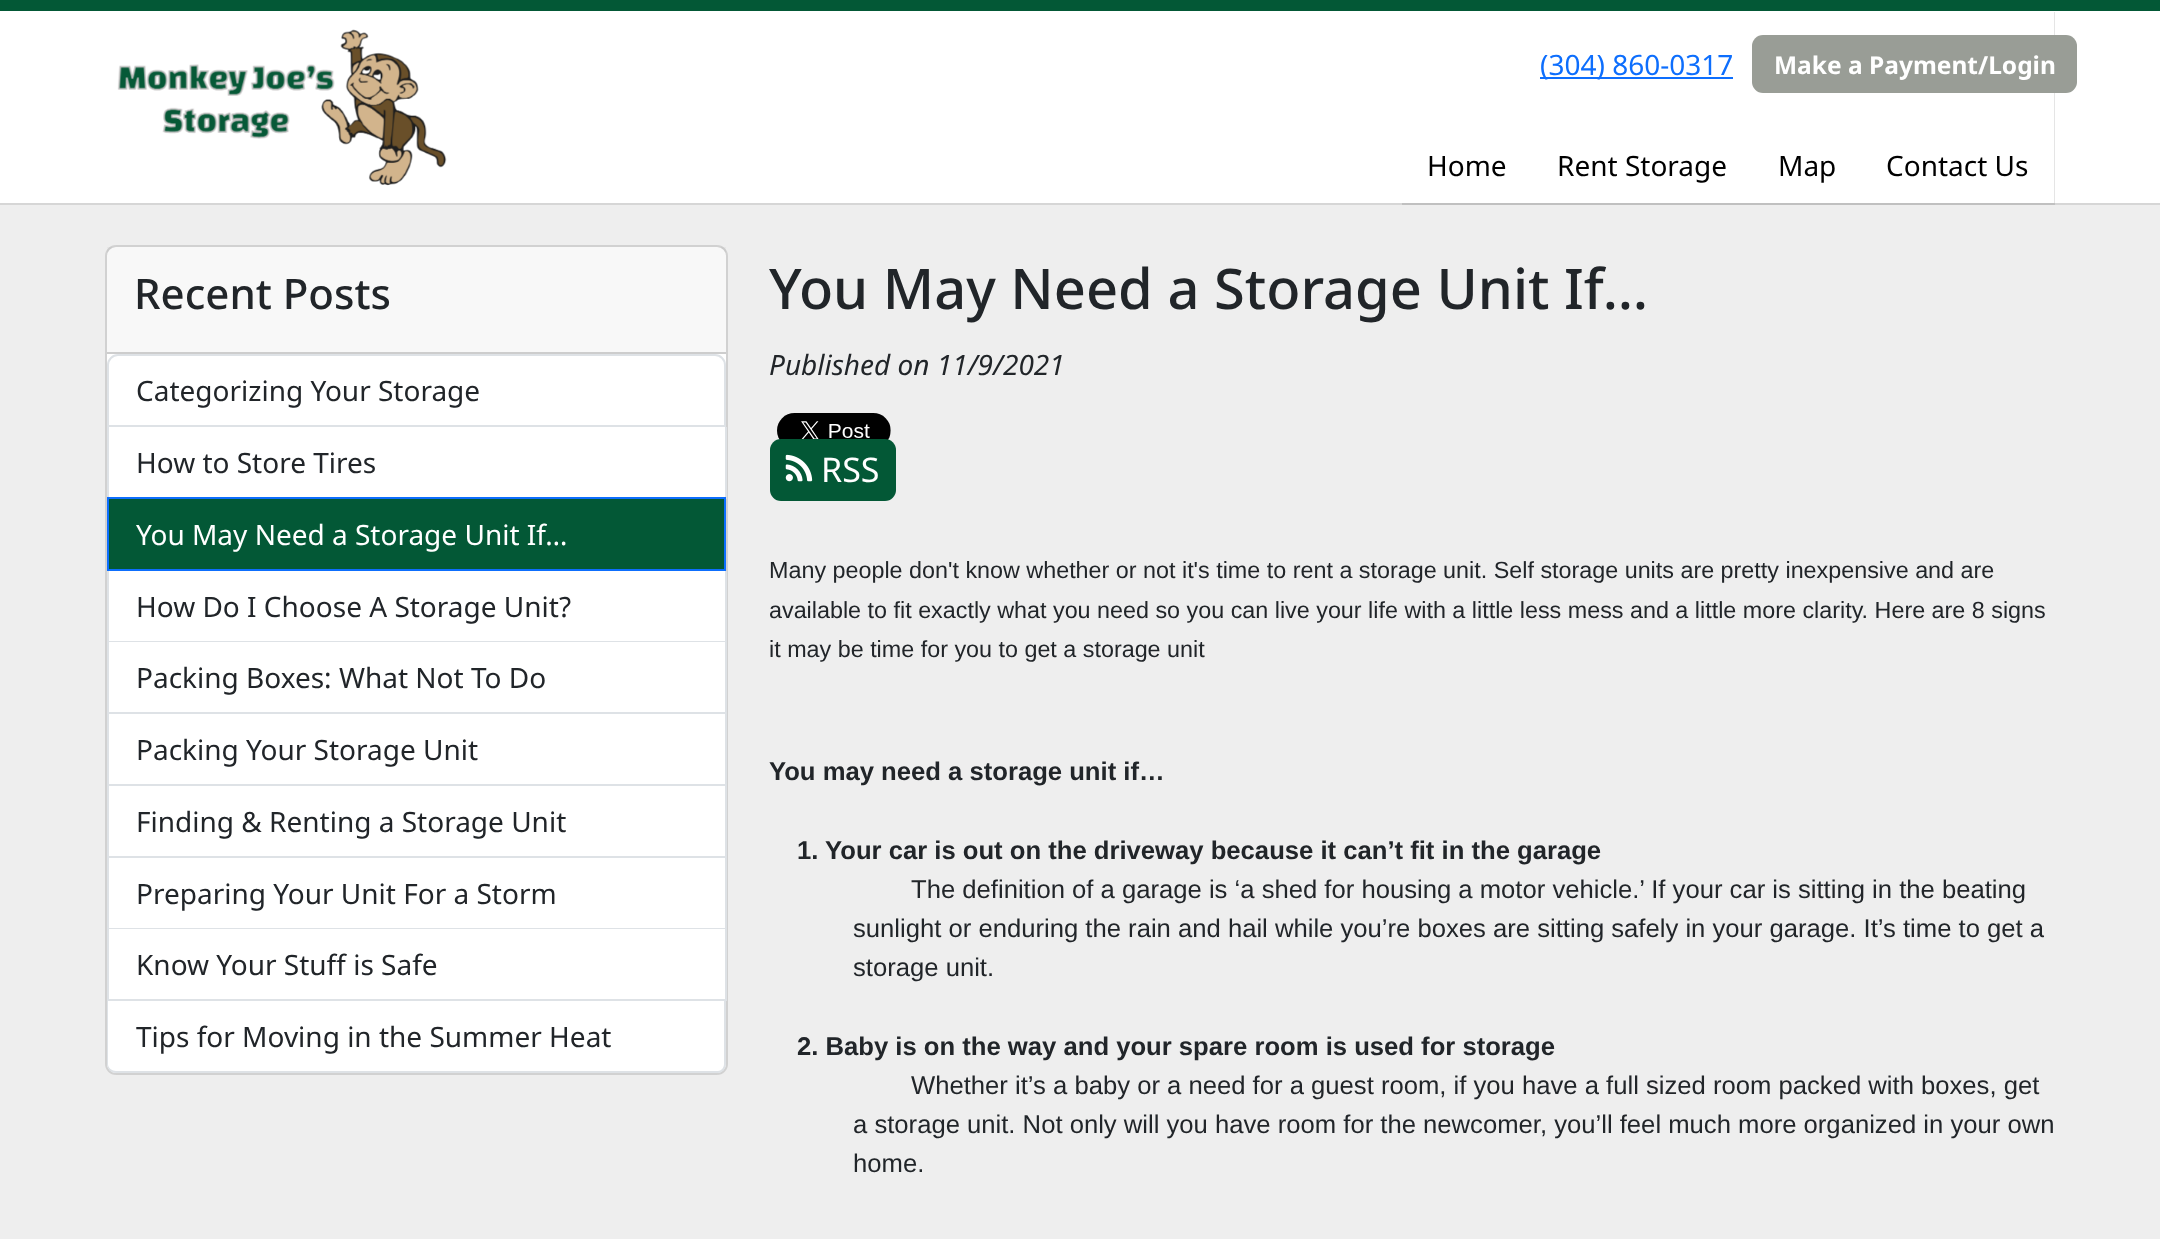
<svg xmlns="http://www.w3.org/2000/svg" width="2160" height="1239">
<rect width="100%" height="100%" fill="#eee"/>
<rect y="203" width="2160" height="2" fill="#d6d6d6"/>
<rect y="11" width="2160" height="192" fill="#fff"/>
<rect width="2160" height="11" fill="#035836"/>
<image x="117" y="29" width="330" height="157" href="media/1.png"/>
<path d="M1402 203v2h653v-193h-1v191z" fill="#0000001a"/>
<rect x="1540" y="77" width="193" height="2" fill="#0d6efd"/>
<text x="1540" y="75" style="font-family:Noto Sans;font-size:28px;fill:#0d6efd">(304) 860-0317</text>
<rect x="1752" y="35" width="325" height="58" rx="11" fill="#999d96"/>
<text x="1774" y="74" style="font-family:Noto Sans;font-size:24.5px;font-weight:bold;fill:#fff">Make a Payment/Login</text>
<text x="1427" y="176" style="font-family:Noto Sans;font-size:28px;fill:#000">Home</text>
<text x="1557" y="176" style="font-family:Noto Sans;font-size:28px;fill:#000">Rent Storage</text>
<text x="1778" y="176" style="font-family:Noto Sans;font-size:28px;fill:#000">Map</text>
<text x="1886" y="176" style="font-family:Noto Sans;font-size:28px;fill:#000">Contact Us</text>
<rect x="105" y="245" width="623" height="830" rx="11" fill="#fff"/>
<rect x="106" y="246" width="621" height="828" rx="10" fill="none" stroke="#0000002e" stroke-width="2"/>
<rect x="107" y="247" width="619" height="105" fill="#21252908"/>
<rect x="107" y="352" width="619" height="2" fill="#cdcdcd"/>
<text x="134" y="309" style="font-family:Noto Sans;font-size:42px;font-weight:500;fill:#212529">Recent Posts</text>
<path d="M118 355h597c5.5 0 10 4.5 10 10v61h-617v-61c0-5.5 4.5-10 10-10z" fill="none" stroke="#dee2e6" stroke-width="2"/>
<text x="136" y="401" style="font-family:Noto Sans;font-size:28px;fill:#212529">Categorizing Your Storage</text>
<rect x="725" y="427" width="2" height="72" fill="#dee2e6"/>
<rect x="107" y="427" width="2" height="72" fill="#dee2e6"/>
<text x="136" y="473" style="font-family:Noto Sans;font-size:28px;fill:#212529">How to Store Tires</text>
<rect x="108" y="498" width="617" height="72" fill="#035836" stroke="#0d6efd" stroke-width="2"/>
<text x="136" y="545" style="font-family:Noto Sans;font-size:28px;fill:#fff">You May Need a Storage Unit If…</text>
<rect x="725" y="571" width="2" height="430" fill="#dee2e6"/>
<rect x="107" y="641" width="619" height="1" fill="#dee2e6"/>
<rect x="107" y="571" width="2" height="71" fill="#dee2e6"/>
<text x="136" y="617" style="font-family:Noto Sans;font-size:28px;fill:#212529">How Do I Choose A Storage Unit?</text>
<rect x="107" y="712" width="619" height="2" fill="#dee2e6"/>
<rect x="107" y="642" width="2" height="72" fill="#dee2e6"/>
<text x="136" y="688" style="font-family:Noto Sans;font-size:28px;fill:#212529">Packing Boxes: What Not To Do</text>
<rect x="107" y="784" width="619" height="2" fill="#dee2e6"/>
<rect x="107" y="714" width="2" height="72" fill="#dee2e6"/>
<text x="136" y="760" style="font-family:Noto Sans;font-size:28px;fill:#212529">Packing Your Storage Unit</text>
<rect x="107" y="856" width="619" height="2" fill="#dee2e6"/>
<rect x="107" y="786" width="2" height="72" fill="#dee2e6"/>
<text x="136" y="832" style="font-family:Noto Sans;font-size:28px;fill:#212529">Finding &amp; Renting a Storage Unit</text>
<rect x="107" y="928" width="619" height="1" fill="#dee2e6"/>
<rect x="107" y="858" width="2" height="71" fill="#dee2e6"/>
<text x="136" y="904" style="font-family:Noto Sans;font-size:28px;fill:#212529">Preparing Your Unit For a Storm</text>
<rect x="107" y="999" width="619" height="2" fill="#dee2e6"/>
<rect x="107" y="929" width="2" height="72" fill="#dee2e6"/>
<text x="136" y="975" style="font-family:Noto Sans;font-size:28px;fill:#212529">Know Your Stuff is Safe</text>
<path d="M107 1001h619v63c0 5-4 9-8 9h-602c-5 0-9-4-9-9zm1 0h616v63c0 4-3 7-6 7h-602c-4 0-8-3-8-7z" fill="#dee2e6" fill-rule="evenodd"/>
<text x="136" y="1047" style="font-family:Noto Sans;font-size:28px;fill:#212529">Tips for Moving in the Summer Heat</text>
<text x="769" y="309" style="font-family:Noto Sans;font-size:56px;font-weight:500;fill:#212529">You May Need a Storage Unit If…</text>
<text x="769" y="375" style="font-family:Noto Sans;font-size:28px;font-style:italic;fill:#212529">Published on 11/9/2021</text>
<image x="777" y="413" width="114" height="27" href="media/2.png"/>
<rect x="770" y="439" width="126" height="62" rx="11" fill="#035836"/>
<image x="785" y="454" width="28" height="28" href="media/3.png"/>
<text x="821" y="482" style="font-family:Noto Sans;font-size:34px;fill:#fff">RSS</text>
<text x="769" y="578" style="font-family:Liberation Sans;font-size:23.33px;fill:#212529">Many people don't know whether or not it's time to rent a storage unit. Self storage units are pretty inexpensive and are</text>
<text x="769" y="618" style="font-family:Liberation Sans;font-size:23.33px;fill:#212529">available to fit exactly what you need so you can live your life with a little less mess and a little more clarity. Here are 8 signs</text>
<text x="769" y="657" style="font-family:Liberation Sans;font-size:23.33px;fill:#212529">it may be time for you to get a storage unit</text>
<text x="769" y="780" style="font-family:Liberation Sans;font-size:25.65px;font-weight:bold;fill:#212529">You may need a storage unit if…</text>
<text x="797" y="859" style="font-family:Liberation Sans;font-size:25.65px;font-weight:bold;fill:#212529">1. Your car is out on the driveway because it can’t fit in the garage</text>
<text x="911" y="898" style="font-family:Liberation Sans;font-size:25.65px;fill:#212529">The definition of a garage is ‘a shed for housing a motor vehicle.’ If your car is sitting in the beating</text>
<text x="853" y="937" style="font-family:Liberation Sans;font-size:25.65px;fill:#212529">sunlight or enduring the rain and hail while you’re boxes are sitting safely in your garage. It’s time to get a</text>
<text x="853" y="976" style="font-family:Liberation Sans;font-size:25.65px;fill:#212529">storage unit.</text>
<text x="797" y="1055" style="font-family:Liberation Sans;font-size:25.65px;font-weight:bold;fill:#212529">2. Baby is on the way and your spare room is used for storage</text>
<text x="911" y="1094" style="font-family:Liberation Sans;font-size:25.65px;fill:#212529">Whether it’s a baby or a need for a guest room, if you have a full sized room packed with boxes, get</text>
<text x="853" y="1133" style="font-family:Liberation Sans;font-size:25.65px;fill:#212529">a storage unit. Not only will you have room for the newcomer, you’ll feel much more organized in your own</text>
<text x="853" y="1172" style="font-family:Liberation Sans;font-size:25.65px;fill:#212529">home.</text>
</svg>
